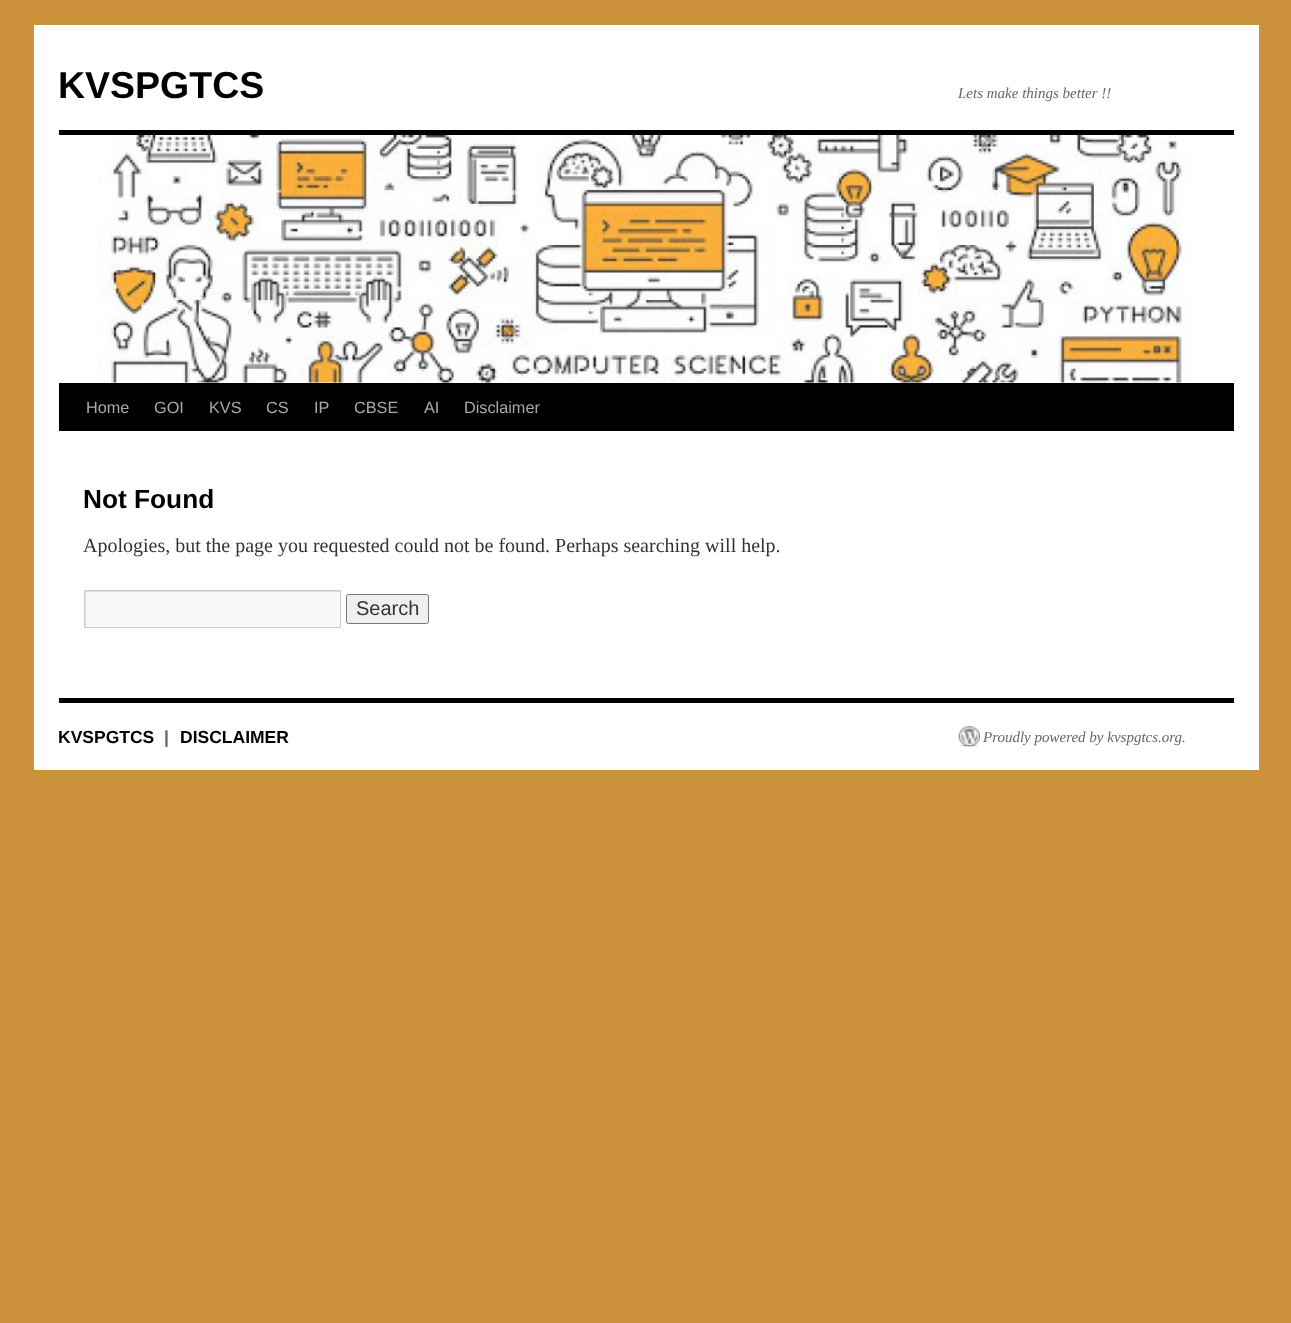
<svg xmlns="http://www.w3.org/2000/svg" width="1291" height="1323">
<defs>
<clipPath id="clip1"><rect x="85" y="591" width="255" height="35"/></clipPath>
</defs>
<rect width="100%" height="100%" fill="#cc923b"/>
<rect x="34" y="25" width="1225" height="745" fill="#fff"/>
<text x="58" y="98" style="font-family:Liberation Sans;font-size:37.5px;font-weight:bold;fill:#000">KVSPGTCS</text>
<text x="958" y="98" style="font-family:Liberation Serif;font-size:15px;font-style:italic;fill:#666">Lets make things better !!</text>
<rect x="59" y="130" width="1175" height="5" fill="#000"/>
<rect x="59" y="383" width="1175" height="48" fill="#000"/>
<image x="98" y="135" width="1092" height="248" href="media/1.png"/>
<text x="86" y="413" style="font-family:Liberation Sans;font-size:16.25px;fill:#aaa">Home</text>
<text x="154" y="413" style="font-family:Liberation Sans;font-size:16.25px;fill:#aaa">GOI</text>
<text x="209" y="413" style="font-family:Liberation Sans;font-size:16.25px;fill:#aaa">KVS</text>
<text x="266" y="413" style="font-family:Liberation Sans;font-size:16.25px;fill:#aaa">CS</text>
<text x="314" y="413" style="font-family:Liberation Sans;font-size:16.25px;fill:#aaa">IP</text>
<text x="354" y="413" style="font-family:Liberation Sans;font-size:16.25px;fill:#aaa">CBSE</text>
<text x="424" y="413" style="font-family:Liberation Sans;font-size:16.25px;fill:#aaa">AI</text>
<text x="464" y="413" style="font-family:Liberation Sans;font-size:16.25px;fill:#aaa">Disclaimer</text>
<text x="83" y="508" style="font-family:Liberation Sans;font-size:26.25px;font-weight:bold;fill:#000">Not Found</text>
<text x="83" y="552" style="font-family:Liberation Serif;font-size:20px;fill:#333">Apologies, but the page you requested could not be found. Perhaps searching will help.</text>
<rect x="85" y="592" width="255" height="35" fill="#f9f9f9"/>
<g clip-path="url(#clip1)">
<path d="M-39 468h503v282h-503zm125 124h255v36h-255z" fill="#e0e0e0" fill-rule="evenodd"/>
</g>
<rect x="84.5" y="590.5" width="256" height="37" fill="none" stroke="#ccc"/>
<rect x="346.5" y="594.5" width="82" height="29" rx="2" fill="#efefef" stroke="#767676"/>
<text x="356" y="615" style="font-family:Liberation Sans;font-size:20px;fill:#333">Search</text>
<rect x="59" y="698" width="1175" height="5" fill="#000"/>
<text x="58" y="743" style="font-family:Liberation Sans;font-size:17.5px;font-weight:bold;fill:#000">KVSPGTCS</text>
<text x="164" y="743" style="font-family:Liberation Sans;font-size:17.5px;font-weight:bold;fill:#666">|</text>
<text x="180" y="743" style="font-family:Liberation Sans;font-size:17.5px;font-weight:bold;fill:#000">DISCLAIMER</text>
<image x="958" y="726" width="22" height="21" href="media/2.png"/>
<text x="983" y="742" style="font-family:Liberation Serif;font-size:15px;font-style:italic;fill:#666">Proudly powered by kvspgtcs.org.</text>
</svg>
